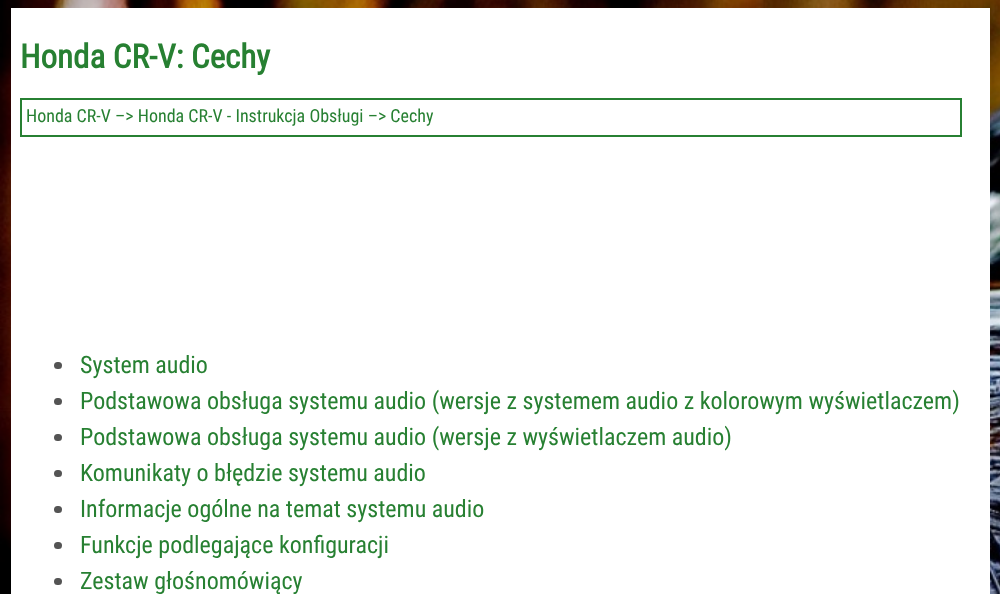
<svg xmlns="http://www.w3.org/2000/svg" width="1000" height="594">
<rect width="100%" height="100%" fill="#fff"/>
<image x="0" y="0" width="1000" height="594" href="media/1.png"/>
<rect x="11" y="8" width="979" height="586" fill="#fff"/>
<text x="20" y="68" style="font-family:Roboto Condensed;font-size:33px;font-weight:bold;fill:#278032">Honda CR-V: Cechy</text>
<rect x="21" y="99" width="940" height="37" fill="none" stroke="#278032" stroke-width="2"/>
<text x="26" y="122" style="font-family:Roboto Condensed;font-size:18px;fill:#278032">Honda CR-V –&gt; Honda CR-V - Instrukcja Obsługi –&gt; Cechy</text>
<rect x="54" y="362" width="8" height="7" rx="3.5" fill="#545454"/>
<text x="80" y="373" style="font-family:Roboto Condensed;font-size:24px;fill:#278032">System audio</text>
<rect x="54" y="398" width="8" height="7" rx="3.5" fill="#545454"/>
<text x="80" y="409" style="font-family:Roboto Condensed;font-size:24px;fill:#278032">Podstawowa obsługa systemu audio (wersje z systemem audio z kolorowym wyświetlaczem)</text>
<rect x="54" y="434" width="8" height="7" rx="3.5" fill="#545454"/>
<text x="80" y="445" style="font-family:Roboto Condensed;font-size:24px;fill:#278032">Podstawowa obsługa systemu audio (wersje z wyświetlaczem audio)</text>
<rect x="54" y="470" width="8" height="7" rx="3.5" fill="#545454"/>
<text x="80" y="481" style="font-family:Roboto Condensed;font-size:24px;fill:#278032">Komunikaty o błędzie systemu audio</text>
<rect x="54" y="506" width="8" height="7" rx="3.5" fill="#545454"/>
<text x="80" y="517" style="font-family:Roboto Condensed;font-size:24px;fill:#278032">Informacje ogólne na temat systemu audio</text>
<rect x="54" y="542" width="8" height="7" rx="3.5" fill="#545454"/>
<text x="80" y="553" style="font-family:Roboto Condensed;font-size:24px;fill:#278032">Funkcje podlegające konfiguracji</text>
<rect x="54" y="578" width="8" height="7" rx="3.5" fill="#545454"/>
<text x="80" y="589" style="font-family:Roboto Condensed;font-size:24px;fill:#278032">Zestaw głośnomówiący</text>
</svg>
